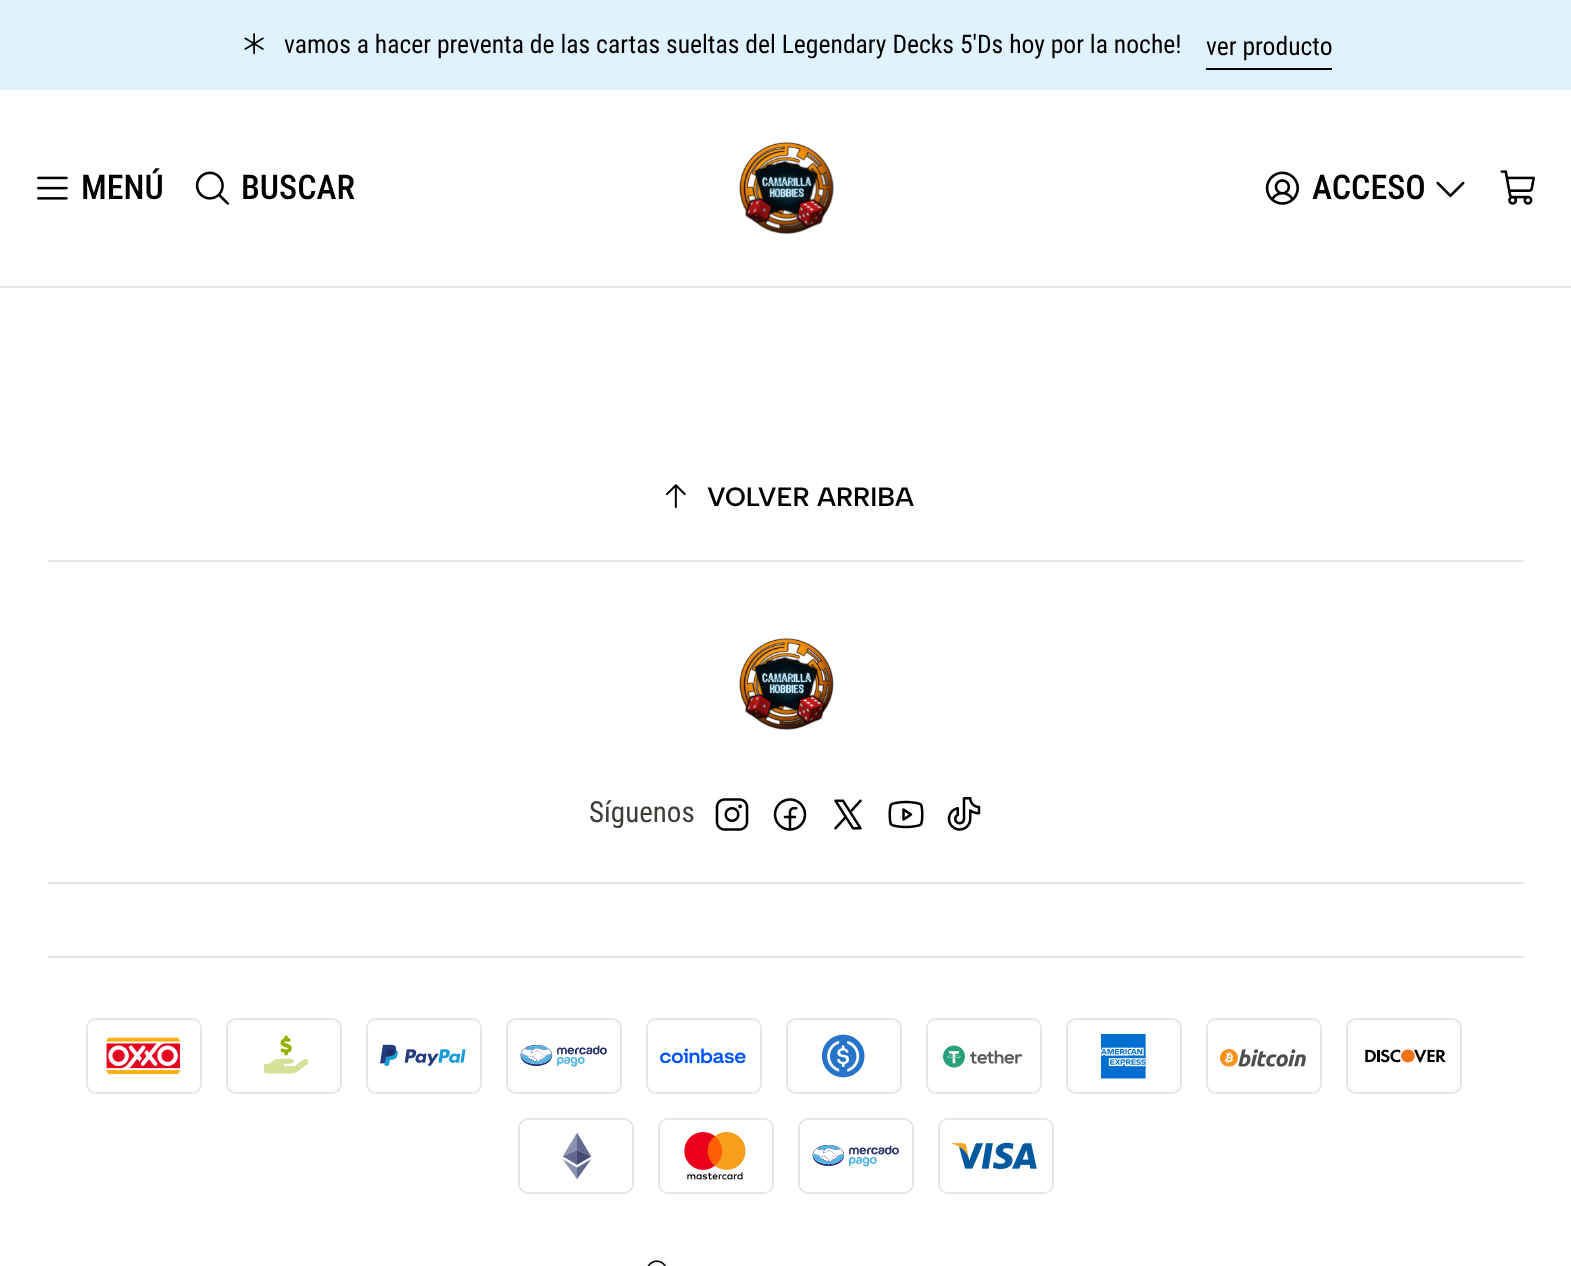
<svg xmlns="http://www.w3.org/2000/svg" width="1571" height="1266">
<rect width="100%" height="100%" fill="#fff"/>
<rect width="1571" height="90" fill="#e0f2fe"/>
<image x="244" y="33" width="20" height="22" href="media/1.png"/>
<text x="284" y="53" style="font-family:Roboto Condensed;font-size:25.6px;fill:#000">vamos a hacer preventa de las cartas sueltas del Legendary Decks 5'Ds hoy por la noche!</text>
<rect x="1206" y="68" width="126" height="2" fill="#010101"/>
<text x="1206" y="55" style="font-family:Roboto Condensed;font-size:25.6px;fill:#000">ver producto</text>
<rect y="286" width="1571" height="2" fill="#e6e6e6"/>
<image x="37" y="176" width="31" height="24" href="media/2.png"/>
<text x="81" y="199" style="font-family:Roboto Condensed;font-size:34px;font-weight:500;fill:#000">MENÚ</text>
<image x="195" y="171" width="34" height="34" href="media/3.png"/>
<text x="241" y="199" style="font-family:Roboto Condensed;font-size:34px;font-weight:500;fill:#000">BUSCAR</text>
<image x="739" y="142" width="95" height="92" href="media/4.png"/>
<image x="1265" y="171" width="34" height="34" href="media/5.png"/>
<text x="1312" y="199" style="font-family:Roboto Condensed;font-size:34px;font-weight:500;fill:#000">ACCESO</text>
<image x="1436" y="181" width="29" height="17" href="media/6.png"/>
<image x="1500" y="170" width="35" height="35" href="media/7.png"/>
<image x="666" y="484" width="20" height="24" href="media/8.png"/>
<text x="707" y="506" style="font-family:Albert Sans;font-size:26.5px;font-weight:600;fill:#000">VOLVER ARRIBA</text>
<rect x="48" y="560" width="1476" height="2" fill="#e6e6e6"/>
<image x="739" y="638" width="95" height="92" href="media/9.png"/>
<text x="589" y="822" style="font-family:Roboto Condensed;font-size:29px;fill:#403d39">Síguenos</text>
<image x="715" y="798" width="34" height="33" href="media/10.png"/>
<image x="773" y="798" width="34" height="33" href="media/11.png"/>
<image x="834" y="799" width="28" height="31" href="media/12.png"/>
<image x="888" y="800" width="36" height="29" href="media/13.png"/>
<image x="947" y="797" width="34" height="34" href="media/14.png"/>
<rect x="48" y="882" width="1476" height="2" fill="#e6e6e6"/>
<rect x="48" y="956" width="1476" height="2" fill="#e6e6e6"/>
<rect x="87" y="1019" width="114" height="74" rx="9" fill="none" stroke="#e6e6e6" stroke-width="2"/>
<image x="106" y="1037" width="74" height="38" href="media/15.png"/>
<rect x="227" y="1019" width="114" height="74" rx="9" fill="none" stroke="#e6e6e6" stroke-width="2"/>
<image x="263" y="1035" width="46" height="39" href="media/16.png"/>
<rect x="367" y="1019" width="114" height="74" rx="9" fill="none" stroke="#e6e6e6" stroke-width="2"/>
<image x="380" y="1044" width="86" height="22" href="media/17.png"/>
<rect x="507" y="1019" width="114" height="74" rx="9" fill="none" stroke="#e6e6e6" stroke-width="2"/>
<image x="520" y="1045" width="87" height="22" href="media/18.png"/>
<rect x="647" y="1019" width="114" height="74" rx="9" fill="none" stroke="#e6e6e6" stroke-width="2"/>
<image x="660" y="1048" width="86" height="16" href="media/19.png"/>
<rect x="787" y="1019" width="114" height="74" rx="9" fill="none" stroke="#e6e6e6" stroke-width="2"/>
<image x="821" y="1034" width="44" height="44" href="media/20.png"/>
<rect x="927" y="1019" width="114" height="74" rx="9" fill="none" stroke="#e6e6e6" stroke-width="2"/>
<image x="943" y="1045" width="80" height="23" href="media/21.png"/>
<rect x="1067" y="1019" width="114" height="74" rx="9" fill="none" stroke="#e6e6e6" stroke-width="2"/>
<image x="1100" y="1033" width="46" height="46" href="media/22.png"/>
<rect x="1207" y="1019" width="114" height="74" rx="9" fill="none" stroke="#e6e6e6" stroke-width="2"/>
<image x="1220" y="1049" width="86" height="18" href="media/23.png"/>
<rect x="1347" y="1019" width="114" height="74" rx="9" fill="none" stroke="#e6e6e6" stroke-width="2"/>
<image x="1365" y="1049" width="81" height="14" href="media/24.png"/>
<rect x="519" y="1119" width="114" height="74" rx="9" fill="none" stroke="#e6e6e6" stroke-width="2"/>
<image x="562" y="1133" width="30" height="46" href="media/25.png"/>
<rect x="659" y="1119" width="114" height="74" rx="9" fill="none" stroke="#e6e6e6" stroke-width="2"/>
<image x="684" y="1132" width="62" height="48" href="media/26.png"/>
<rect x="799" y="1119" width="114" height="74" rx="9" fill="none" stroke="#e6e6e6" stroke-width="2"/>
<image x="812" y="1145" width="87" height="22" href="media/27.png"/>
<rect x="939" y="1119" width="114" height="74" rx="9" fill="none" stroke="#e6e6e6" stroke-width="2"/>
<image x="952" y="1142" width="85" height="27" href="media/28.png"/>
<image x="647" y="1260" width="19" height="6" href="media/29.png"/>
</svg>
